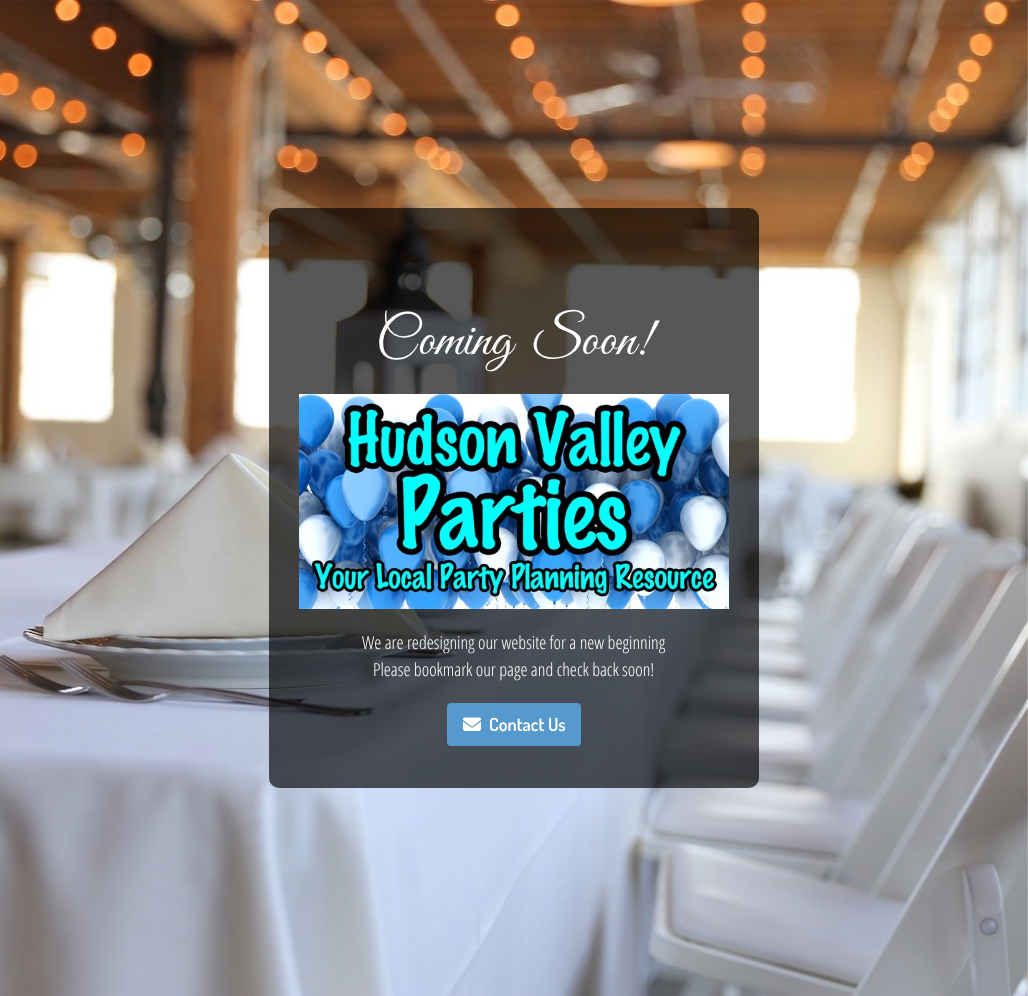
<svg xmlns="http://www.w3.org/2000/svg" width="1028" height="996">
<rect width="100%" height="100%" fill="#fff"/>
<image x="0" y="0" width="1028" height="996" href="media/1.png"/>
<rect x="269" y="208" width="490" height="580" rx="10" fill="#000000a8"/>
<text x="376" y="354" style="font-family:Great Vibes;font-size:54px;fill:#fff" xml:space="preserve">Coming  Soon!</text>
<image x="299" y="394" width="430" height="215" href="media/2.png"/>
<text x="362" y="649" style="font-family:Open Sans Condensed;font-size:18px;font-weight:300;fill:#fff">We are redesigning our website for a new beginning</text>
<text x="373" y="676" style="font-family:Open Sans Condensed;font-size:18px;font-weight:300;fill:#fff">Please bookmark our page and check back soon!</text>
<rect x="447" y="703" width="134" height="43" rx="4" fill="#5699cc"/>
<image x="463" y="717" width="18" height="14" href="media/3.png"/>
<text x="489" y="731" style="font-family:Dosis;font-size:18px;font-weight:600;fill:#fff">Contact Us</text>
</svg>
